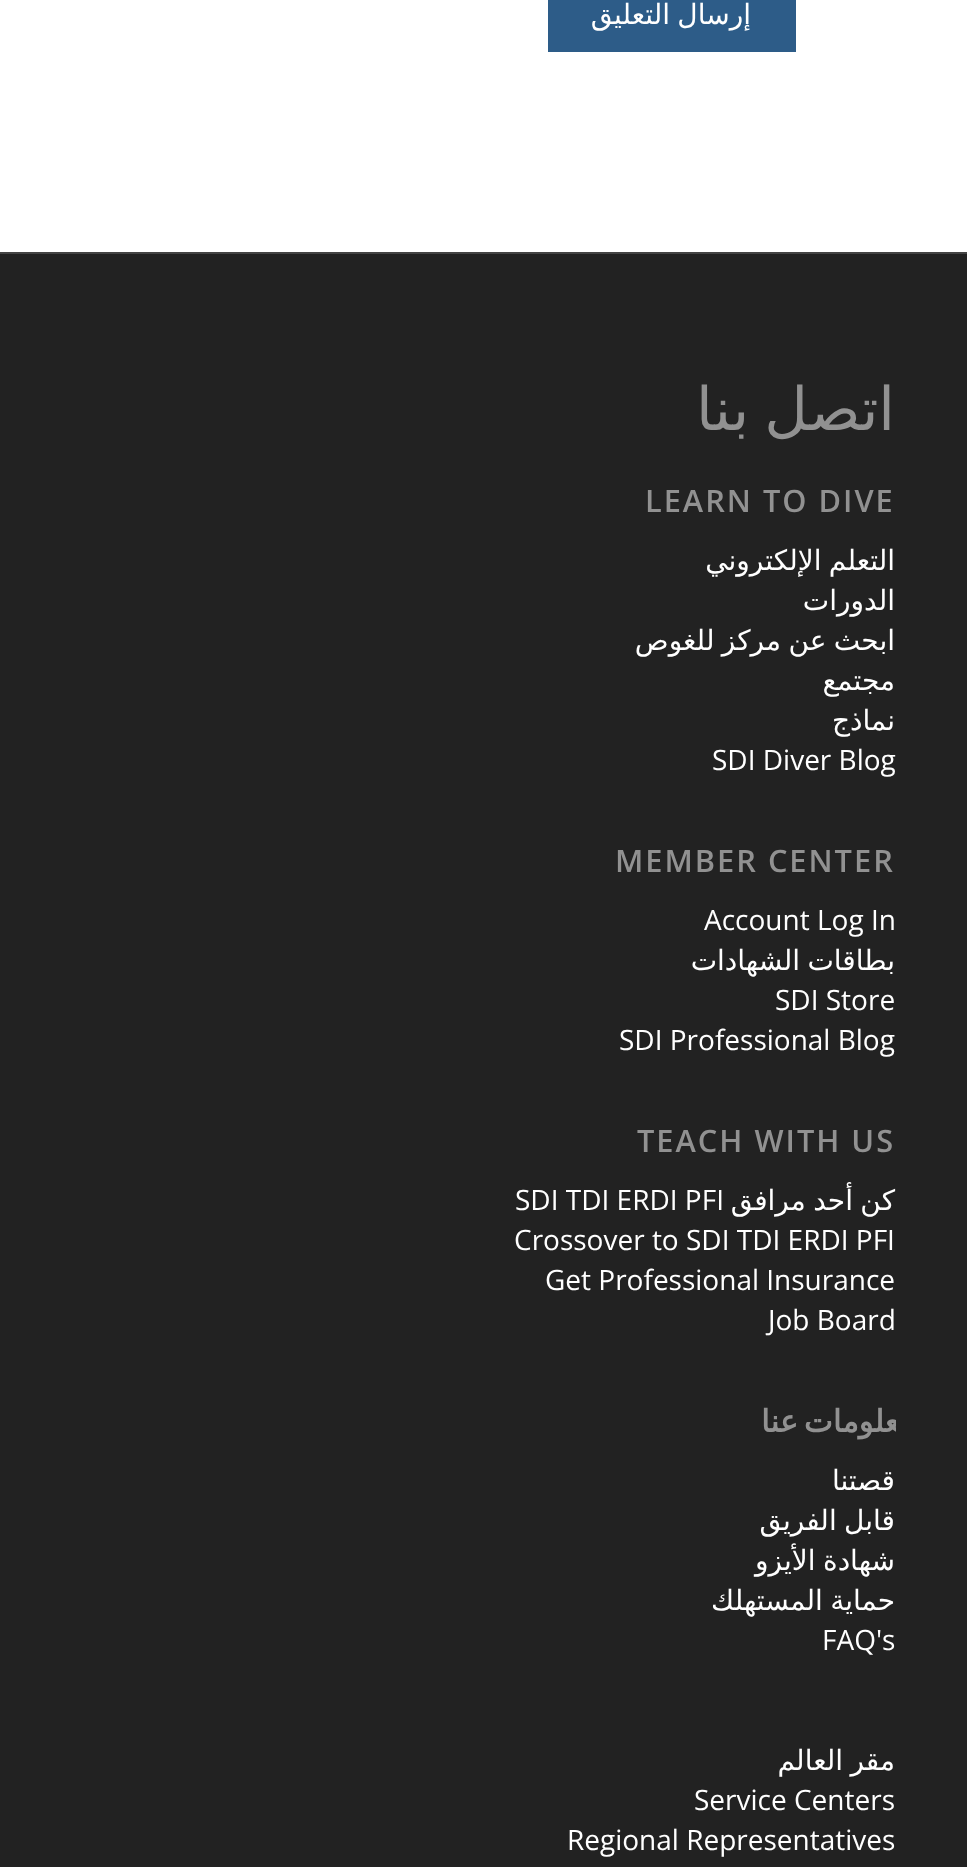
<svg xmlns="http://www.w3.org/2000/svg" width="967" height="1867">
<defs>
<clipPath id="clip1"><rect x="72" y="460" width="824" height="320"/></clipPath>
<clipPath id="clip2"><rect x="72" y="1100" width="824" height="240"/></clipPath>
<clipPath id="clip3"><rect x="72" y="1380" width="824" height="480"/></clipPath>
</defs>
<rect width="100%" height="100%" fill="#fff"/>
<rect x="548" width="248" height="52" fill="#2d5c88"/>
<text x="751" y="24" word-spacing="-1.5" style="font-family:DejaVu Sans;font-size:28px;direction:rtl;fill:#fff">إرسال التعليق</text>
<rect y="254" width="967" height="1613" fill="#222"/>
<rect y="252" width="967" height="2" fill="#444"/>
<text x="895" y="430" word-spacing="-4" style="font-family:DejaVu Sans;font-size:60px;direction:rtl;fill:#919191">اتصل بنا</text>
<text x="645" y="512" style="font-family:Open Sans;font-size:30.75px;font-weight:600;letter-spacing:2px;fill:#919191">LEARN TO DIVE</text>
<text x="895" y="570" word-spacing="-1.5" style="font-family:DejaVu Sans;font-size:28px;direction:rtl;fill:#fff">التعلم الإلكتروني</text>
<text x="895" y="610" style="font-family:DejaVu Sans;font-size:28px;direction:rtl;fill:#fff">الدورات</text>
<g clip-path="url(#clip1)">
<text x="895" y="650" word-spacing="-1.5" style="font-family:DejaVu Sans;font-size:28px;direction:rtl;fill:#fff">ابحث عن مركز للغوص</text>
</g>
<text x="895" y="690" style="font-family:DejaVu Sans;font-size:28px;direction:rtl;fill:#fff">مجتمع</text>
<text x="895" y="730" style="font-family:DejaVu Sans;font-size:28px;direction:rtl;fill:#fff">نماذج</text>
<text x="712" y="770" style="font-family:Open Sans;font-size:28px;fill:#fff">SDI Diver Blog</text>
<text x="615" y="872" style="font-family:Open Sans;font-size:30.75px;font-weight:600;letter-spacing:2px;fill:#919191">MEMBER CENTER</text>
<text x="704" y="930" style="font-family:Open Sans;font-size:28px;fill:#fff">Account Log In</text>
<text x="895" y="970" word-spacing="-1.5" style="font-family:DejaVu Sans;font-size:28px;direction:rtl;fill:#fff">بطاقات الشهادات</text>
<text x="775" y="1010" style="font-family:Open Sans;font-size:28px;fill:#fff">SDI Store</text>
<text x="619" y="1050" style="font-family:Open Sans;font-size:28px;fill:#fff">SDI Professional Blog</text>
<text x="637" y="1152" style="font-family:Open Sans;font-size:30.75px;font-weight:600;letter-spacing:2px;fill:#919191">TEACH WITH US</text>
<text x="515" y="1210" style="font-family:Open Sans;font-size:28px;fill:#fff">SDI TDI ERDI PFI</text>
<g clip-path="url(#clip2)">
<text x="895" y="1210" word-spacing="-1.5" style="font-family:DejaVu Sans;font-size:28px;direction:rtl;fill:#fff">كن أحد مرافق</text>
</g>
<text x="514" y="1250" style="font-family:Open Sans;font-size:28px;fill:#fff">Crossover to SDI TDI ERDI PFI</text>
<text x="545" y="1290" style="font-family:Open Sans;font-size:28px;fill:#fff">Get Professional Insurance</text>
<text x="768" y="1330" style="font-family:Open Sans;font-size:28px;fill:#fff">Job Board</text>
<g clip-path="url(#clip3)">
<text x="916" y="1432" word-spacing="-4" style="font-family:DejaVu Sans;font-size:30.75px;font-weight:bold;letter-spacing:2px;direction:rtl;fill:#919191">معلومات عنا</text>
</g>
<text x="895" y="1490" style="font-family:DejaVu Sans;font-size:28px;direction:rtl;fill:#fff">قصتنا</text>
<text x="895" y="1530" word-spacing="-1.5" style="font-family:DejaVu Sans;font-size:28px;direction:rtl;fill:#fff">قابل الفريق</text>
<text x="895" y="1570" word-spacing="-1.5" style="font-family:DejaVu Sans;font-size:28px;direction:rtl;fill:#fff">شهادة الأيزو</text>
<text x="895" y="1610" word-spacing="-1.5" style="font-family:DejaVu Sans;font-size:28px;direction:rtl;fill:#fff">حماية المستهلك</text>
<text x="822" y="1650" style="font-family:Open Sans;font-size:28px;fill:#fff">FAQ's</text>
<text x="895" y="1770" word-spacing="-1.5" style="font-family:DejaVu Sans;font-size:28px;direction:rtl;fill:#fff">مقر العالم</text>
<text x="694" y="1810" style="font-family:Open Sans;font-size:28px;fill:#fff">Service Centers</text>
<text x="567" y="1850" style="font-family:Open Sans;font-size:28px;fill:#fff">Regional Representatives</text>
</svg>
